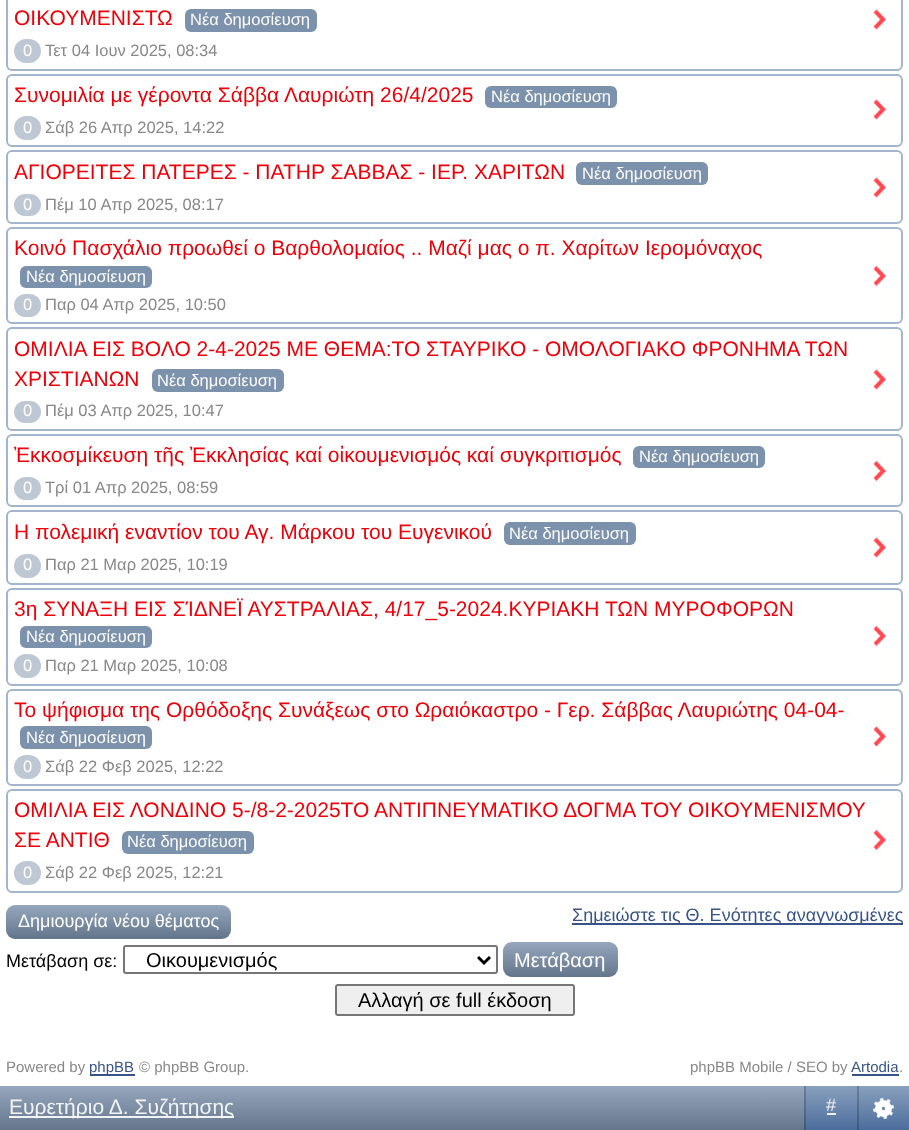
<svg xmlns="http://www.w3.org/2000/svg" width="909" height="1130">
<defs>
<linearGradient id="g1" gradientUnits="userSpaceOnUse" x1="119" y1="905" x2="119" y2="939"><stop offset="0" stop-color="#96a7bd"/><stop offset="1" stop-color="#63758b"/></linearGradient>
<linearGradient id="g2" gradientUnits="userSpaceOnUse" x1="560" y1="942" x2="560" y2="977"><stop offset="0" stop-color="#96a7bd"/><stop offset="1" stop-color="#63758b"/></linearGradient>
<linearGradient id="g3" gradientUnits="userSpaceOnUse" x1="455" y1="1086" x2="455" y2="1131"><stop offset="0" stop-color="#96a7bd"/><stop offset="1" stop-color="#63758b"/></linearGradient>
<linearGradient id="g4" gradientUnits="userSpaceOnUse" x1="830" y1="1086" x2="830" y2="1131"><stop offset="0" stop-color="#89a0be"/><stop offset="1" stop-color="#4a6c9b"/></linearGradient>
<linearGradient id="g5" gradientUnits="userSpaceOnUse" x1="830" y1="1086" x2="830" y2="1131"><stop offset="0" stop-color="#6e8098"/><stop offset="1" stop-color="#3b567c"/></linearGradient>
<linearGradient id="g6" gradientUnits="userSpaceOnUse" x1="883" y1="1086" x2="883" y2="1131"><stop offset="0" stop-color="#89a0be"/><stop offset="1" stop-color="#4a6c9b"/></linearGradient>
<linearGradient id="g7" gradientUnits="userSpaceOnUse" x1="883" y1="1086" x2="883" y2="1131"><stop offset="0" stop-color="#6e8098"/><stop offset="1" stop-color="#3b567c"/></linearGradient>
</defs>
<rect width="100%" height="100%" fill="#fff"/>
<rect x="7" y="-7" width="895" height="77" rx="5" fill="none" stroke="#a2b5cd" stroke-width="2"/>
<text x="14" y="25" style="font-family:Liberation Sans;font-size:21px;fill:#ed0009">ΟΙΚΟΥΜΕΝΙΣΤΩ</text>
<rect x="185" y="9" width="132" height="23" rx="6" fill="#7c91ac"/>
<text x="190" y="25" style="font-family:Liberation Sans;font-size:16.5px;fill:#fff">Νέα δημοσίευση</text>
<image x="873" y="9" width="14" height="21" href="media/1.png"/>
<rect x="14" y="39" width="27" height="24" rx="12" fill="#bec8d5"/>
<text x="23" y="56" style="font-family:Liberation Sans;font-size:16.5px;fill:#fff">0</text>
<text x="45" y="56" style="font-family:Liberation Sans;font-size:16.5px;fill:#888">Τετ 04 Ιουν 2025, 08:34</text>
<rect x="7" y="75" width="895" height="71" rx="5" fill="none" stroke="#a2b5cd" stroke-width="2"/>
<text x="14" y="102" style="font-family:Liberation Sans;font-size:21px;fill:#ed0009">Συνομιλία με γέροντα Σάββα Λαυριώτη 26/4/2025</text>
<rect x="485" y="86" width="132" height="22" rx="6" fill="#7c91ac"/>
<text x="491" y="102" style="font-family:Liberation Sans;font-size:16.5px;fill:#fff">Νέα δημοσίευση</text>
<image x="873" y="99" width="14" height="21" href="media/1.png"/>
<rect x="14" y="116" width="27" height="24" rx="12" fill="#bec8d5"/>
<text x="23" y="133" style="font-family:Liberation Sans;font-size:16.5px;fill:#fff">0</text>
<text x="45" y="133" style="font-family:Liberation Sans;font-size:16.5px;fill:#888">Σάβ 26 Απρ 2025, 14:22</text>
<rect x="7" y="151" width="895" height="72" rx="5" fill="none" stroke="#a2b5cd" stroke-width="2"/>
<text x="14" y="179" style="font-family:Liberation Sans;font-size:21px;fill:#ed0009">ΑΓΙΟΡΕΙΤΕΣ ΠΑΤΕΡΕΣ - ΠΑΤΗΡ ΣΑΒΒΑΣ - ΙΕΡ. ΧΑΡΙΤΩΝ</text>
<rect x="576" y="162" width="132" height="23" rx="6" fill="#7c91ac"/>
<text x="582" y="179" style="font-family:Liberation Sans;font-size:16.5px;fill:#fff">Νέα δημοσίευση</text>
<image x="873" y="177" width="14" height="21" href="media/1.png"/>
<rect x="14" y="194" width="27" height="22" rx="11" fill="#bec8d5"/>
<text x="23" y="210" style="font-family:Liberation Sans;font-size:16.5px;fill:#fff">0</text>
<text x="45" y="210" style="font-family:Liberation Sans;font-size:16.5px;fill:#888">Πέμ 10 Απρ 2025, 08:17</text>
<rect x="7" y="228" width="895" height="95" rx="5" fill="none" stroke="#a2b5cd" stroke-width="2"/>
<text x="14" y="255" style="font-family:Liberation Sans;font-size:21px;fill:#ed0009">Κοινό Πασχάλιο προωθεί ο Βαρθολομαίος .. Μαζί μας ο π. Χαρίτων Ιερομόναχος</text>
<rect x="20" y="266" width="132" height="22" rx="6" fill="#7c91ac"/>
<text x="26" y="282" style="font-family:Liberation Sans;font-size:16.5px;fill:#fff">Νέα δημοσίευση</text>
<image x="873" y="265" width="14" height="22" href="media/2.png"/>
<rect x="14" y="294" width="27" height="23" rx="11.5" fill="#bec8d5"/>
<text x="23" y="310" style="font-family:Liberation Sans;font-size:16.5px;fill:#fff">0</text>
<text x="45" y="310" style="font-family:Liberation Sans;font-size:16.5px;fill:#888">Παρ 04 Απρ 2025, 10:50</text>
<rect x="7" y="328" width="895" height="102" rx="5" fill="none" stroke="#a2b5cd" stroke-width="2"/>
<text x="14" y="356" style="font-family:Liberation Sans;font-size:21px;fill:#ed0009">ΟΜΙΛΙΑ ΕΙΣ ΒΟΛΟ 2-4-2025 ΜΕ ΘΕΜΑ:ΤΟ ΣΤΑΥΡΙΚΟ - ΟΜΟΛΟΓΙΑΚΟ ΦΡΟΝΗΜΑ ΤΩΝ</text>
<text x="14" y="386" style="font-family:Liberation Sans;font-size:21px;fill:#ed0009">ΧΡΙΣΤΙΑΝΩΝ</text>
<rect x="152" y="369" width="132" height="23" rx="6" fill="#7c91ac"/>
<text x="157" y="386" style="font-family:Liberation Sans;font-size:16.5px;fill:#fff">Νέα δημοσίευση</text>
<image x="873" y="369" width="14" height="21" href="media/1.png"/>
<rect x="14" y="401" width="27" height="22" rx="11" fill="#bec8d5"/>
<text x="23" y="416" style="font-family:Liberation Sans;font-size:16.5px;fill:#fff">0</text>
<text x="45" y="416" style="font-family:Liberation Sans;font-size:16.5px;fill:#888">Πέμ 03 Απρ 2025, 10:47</text>
<rect x="7" y="435" width="895" height="71" rx="5" fill="none" stroke="#a2b5cd" stroke-width="2"/>
<text x="14" y="462" style="font-family:Liberation Sans;font-size:21px;fill:#ed0009">Ἐκκοσμίκευση τῆς Ἐκκλησίας καί οἰκουμενισμός καί συγκριτισμός</text>
<rect x="633" y="446" width="132" height="22" rx="6" fill="#7c91ac"/>
<text x="639" y="462" style="font-family:Liberation Sans;font-size:16.5px;fill:#fff">Νέα δημοσίευση</text>
<image x="873" y="460" width="14" height="22" href="media/2.png"/>
<rect x="14" y="477" width="27" height="23" rx="11.5" fill="#bec8d5"/>
<text x="23" y="493" style="font-family:Liberation Sans;font-size:16.5px;fill:#fff">0</text>
<text x="45" y="493" style="font-family:Liberation Sans;font-size:16.5px;fill:#888">Τρί 01 Απρ 2025, 08:59</text>
<rect x="7" y="511" width="895" height="73" rx="5" fill="none" stroke="#a2b5cd" stroke-width="2"/>
<text x="14" y="539" style="font-family:Liberation Sans;font-size:21px;fill:#ed0009">Η πολεμική εναντίον του Αγ. Μάρκου του Ευγενικού</text>
<rect x="504" y="522" width="132" height="23" rx="6" fill="#7c91ac"/>
<text x="509" y="539" style="font-family:Liberation Sans;font-size:16.5px;fill:#fff">Νέα δημοσίευση</text>
<image x="873" y="537" width="14" height="21" href="media/1.png"/>
<rect x="14" y="554" width="27" height="24" rx="12" fill="#bec8d5"/>
<text x="23" y="570" style="font-family:Liberation Sans;font-size:16.5px;fill:#fff">0</text>
<text x="45" y="570" style="font-family:Liberation Sans;font-size:16.5px;fill:#888">Παρ 21 Μαρ 2025, 10:19</text>
<rect x="7" y="589" width="895" height="96" rx="5" fill="none" stroke="#a2b5cd" stroke-width="2"/>
<text x="14" y="616" style="font-family:Liberation Sans;font-size:21px;fill:#ed0009">3η ΣΥΝΑΞΗ ΕΙΣ ΣΊΔΝΕΪ ΑΥΣΤΡΑΛΙΑΣ, 4/17_5-2024.ΚΥΡΙΑΚΗ ΤΩΝ ΜΥΡΟΦΟΡΩN</text>
<rect x="20" y="626" width="132" height="22" rx="6" fill="#7c91ac"/>
<text x="26" y="642" style="font-family:Liberation Sans;font-size:16.5px;fill:#fff">Νέα δημοσίευση</text>
<image x="873" y="625" width="14" height="22" href="media/2.png"/>
<rect x="14" y="654" width="27" height="24" rx="12" fill="#bec8d5"/>
<text x="23" y="671" style="font-family:Liberation Sans;font-size:16.5px;fill:#fff">0</text>
<text x="45" y="671" style="font-family:Liberation Sans;font-size:16.5px;fill:#888">Παρ 21 Μαρ 2025, 10:08</text>
<rect x="7" y="690" width="895" height="95" rx="5" fill="none" stroke="#a2b5cd" stroke-width="2"/>
<text x="14" y="717" style="font-family:Liberation Sans;font-size:21px;fill:#ed0009">Το ψήφισμα της Ορθόδοξης Συνάξεως στο Ωραιόκαστρο - Γερ. Σάββας Λαυριώτης 04-04-</text>
<rect x="20" y="726" width="132" height="23" rx="6" fill="#7c91ac"/>
<text x="26" y="743" style="font-family:Liberation Sans;font-size:16.5px;fill:#fff">Νέα δημοσίευση</text>
<image x="873" y="726" width="14" height="21" href="media/1.png"/>
<rect x="14" y="755" width="27" height="24" rx="12" fill="#bec8d5"/>
<text x="23" y="772" style="font-family:Liberation Sans;font-size:16.5px;fill:#fff">0</text>
<text x="45" y="772" style="font-family:Liberation Sans;font-size:16.5px;fill:#888">Σάβ 22 Φεβ 2025, 12:22</text>
<rect x="7" y="790" width="895" height="102" rx="5" fill="none" stroke="#a2b5cd" stroke-width="2"/>
<text x="14" y="817" style="font-family:Liberation Sans;font-size:21px;fill:#ed0009">ΟΜΙΛΙΑ ΕΙΣ ΛΟΝΔΙΝΟ 5-/8-2-2025ΤΟ ΑΝΤΙΠΝΕΥΜΑΤΙΚΟ ΔΟΓΜΑ ΤΟΥ ΟΙΚΟΥΜΕΝΙΣΜΟΥ</text>
<text x="14" y="847" style="font-family:Liberation Sans;font-size:21px;fill:#ed0009">ΣΕ ΑΝΤΙΘ</text>
<rect x="122" y="831" width="132" height="23" rx="6" fill="#7c91ac"/>
<text x="127" y="847" style="font-family:Liberation Sans;font-size:16.5px;fill:#fff">Νέα δημοσίευση</text>
<image x="873" y="829" width="14" height="22" href="media/2.png"/>
<rect x="14" y="861" width="27" height="24" rx="12" fill="#bec8d5"/>
<text x="23" y="878" style="font-family:Liberation Sans;font-size:16.5px;fill:#fff">0</text>
<text x="45" y="878" style="font-family:Liberation Sans;font-size:16.5px;fill:#888">Σάβ 22 Φεβ 2025, 12:21</text>
<rect x="6" y="905" width="225" height="34" rx="9" fill="url(#g1)"/>
<text x="18" y="927" style="font-family:Liberation Sans;font-size:18px;fill:#fff">Δημιουργία νέου θέματος</text>
<rect x="572" y="923" width="331" height="2" fill="#385487"/>
<text x="572" y="921" style="font-family:Liberation Sans;font-size:18px;fill:#385487">Σημειώστε τις Θ. Ενότητες αναγνωσμένες</text>
<text x="6" y="967" style="font-family:Liberation Sans;font-size:18px;fill:#000">Μετάβαση σε:</text>
<rect x="124" y="946" width="373" height="27" rx="2" fill="none" stroke="#767676" stroke-width="2"/>
<path d="M478 957l6 6l6-6" fill="none" stroke="#000" stroke-width="3"/>
<text x="146" y="967" style="font-family:Liberation Sans;font-size:20px;fill:#000">Οικουμενισμός</text>
<rect x="503" y="942" width="115" height="35" rx="9" fill="url(#g2)"/>
<text x="514" y="967" style="font-family:Liberation Sans;font-size:20px;fill:#fff">Μετάβαση</text>
<rect x="336" y="985" width="238" height="30" rx="2" fill="#efefef" stroke="#767676" stroke-width="2"/>
<text x="358" y="1007" style="font-family:Liberation Sans;font-size:20px;fill:#000">Αλλαγή σε full έκδοση</text>
<text x="6" y="1072" style="font-family:Liberation Sans;font-size:15px;fill:#888">Powered by</text>
<rect x="90" y="1074" width="45" height="2" fill="#385487"/>
<text x="89" y="1072" style="font-family:Liberation Sans;font-size:15px;fill:#385487">phpBB</text>
<text x="139" y="1072" style="font-family:Liberation Sans;font-size:15px;fill:#888">© phpBB Group.</text>
<text x="690" y="1072" style="font-family:Liberation Sans;font-size:15px;fill:#888">phpBB Mobile / SEO by</text>
<text x="851" y="1072" style="font-family:Liberation Sans;font-size:15px;fill:#385487">Artodia</text>
<rect x="852" y="1074" width="47" height="2" fill="#385487"/>
<text x="899" y="1072" style="font-family:Liberation Sans;font-size:15px;fill:#888">.</text>
<rect y="1086" width="804" height="44" fill="url(#g3)"/>
<rect x="9" y="1116" width="225" height="2" fill="#f1f3f5"/>
<text x="9" y="1114" style="font-family:Liberation Sans;font-size:21px;fill:#f1f3f7">Ευρετήριο Δ. Συζήτησης</text>
<rect x="806" y="1086" width="51" height="44" fill="url(#g4)"/>
<rect x="804" y="1086" width="2" height="44" fill="url(#g5)"/>
<text x="826" y="1111" style="font-family:Liberation Sans;font-size:18px;fill:#f1f3f7">#</text>
<rect x="827" y="1113" width="9" height="2" fill="#eff2f6"/>
<rect x="859" y="1086" width="50" height="44" fill="url(#g6)"/>
<rect x="857" y="1086" width="2" height="44" fill="url(#g7)"/>
<image x="873" y="1098" width="21" height="21" href="media/3.png"/>
</svg>
